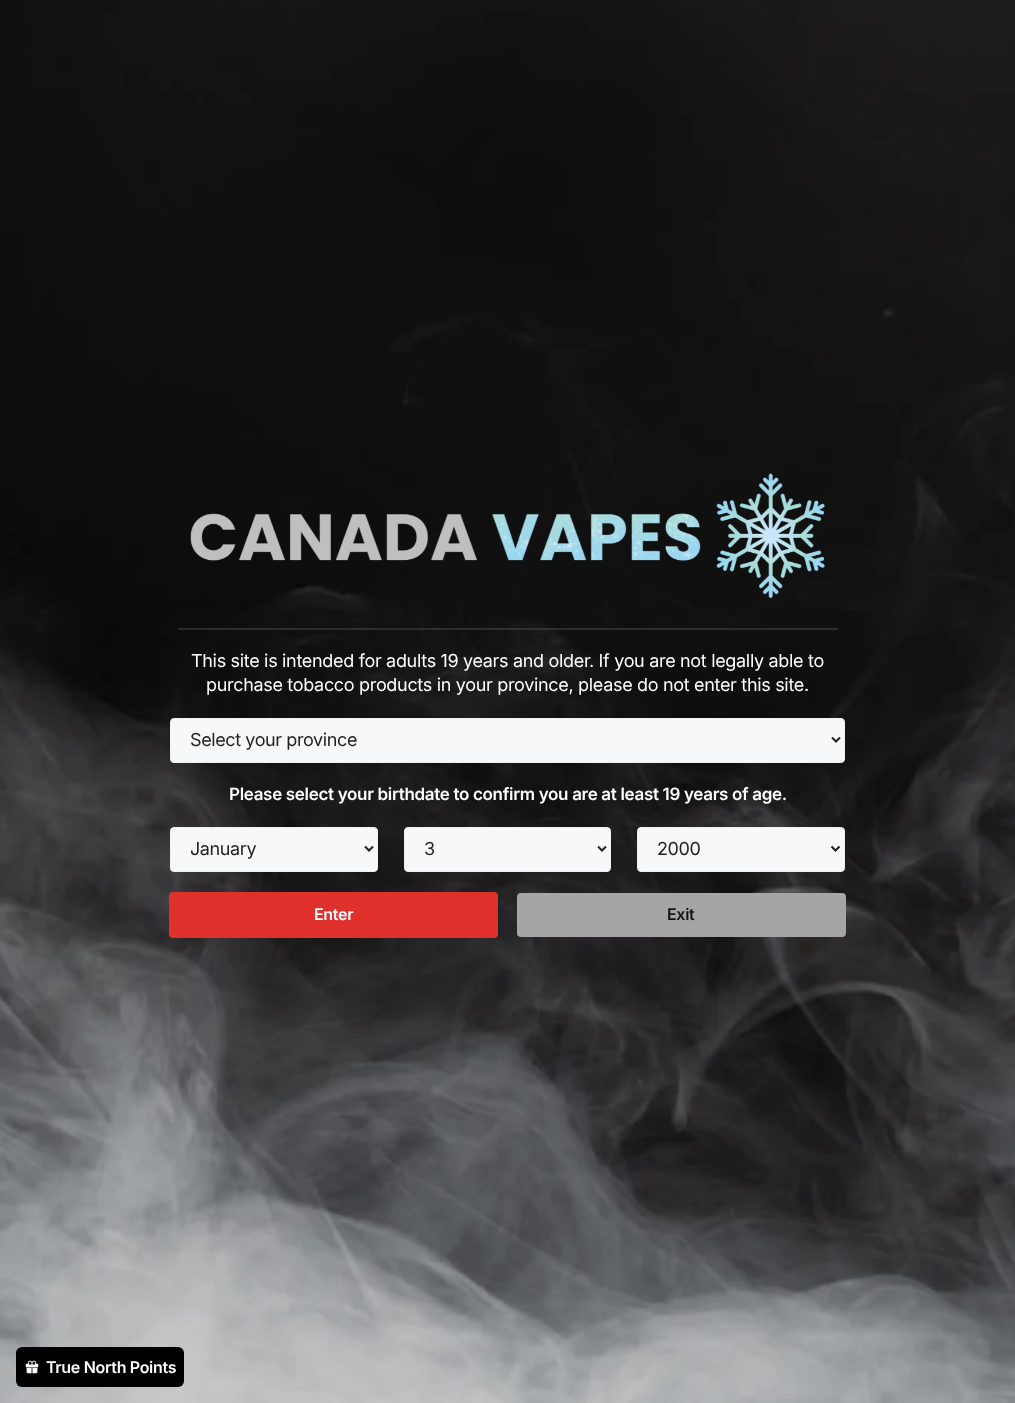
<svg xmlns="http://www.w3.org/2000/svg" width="1015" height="1403">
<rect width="100%" height="100%" fill="#fff"/>
<image x="0" y="0" width="1015" height="1403" href="media/1.png"/>
<image x="190" y="473" width="635" height="126" href="media/2.png"/>
<rect x="535" y="628" width="5" height="2" fill="#0000001a"/>
<rect x="178" y="628" width="660" height="2" fill="#ffffff1f"/>
<text x="191" y="667" style="font-family:Inter;font-size:18px;letter-spacing:-0.32px;fill:#fff">This site is intended for adults 19</text>
<text x="463" y="667" style="font-family:Inter;font-size:18px;letter-spacing:-0.32px;fill:#fff">years and older</text>
<text x="589" y="667" style="font-family:Inter;font-size:18px;letter-spacing:-0.32px;fill:#fff">. If you are not legally able to</text>
<text x="206" y="691" style="font-family:Inter;font-size:18px;letter-spacing:-0.32px;fill:#fff">purchase tobacco products in your province, please do not enter this site.</text>
<rect x="170.5" y="718.5" width="674" height="44" rx="3.5" fill="#f7f8f9" stroke="#f0f0f0"/>
<path d="M832 737.5l4 4l4-4" fill="none" stroke="#222" stroke-width="2"/>
<text x="190" y="746" style="font-family:Inter;font-size:18px;letter-spacing:-0.4px;fill:#222">Select your province</text>
<text x="229" y="800" style="font-family:Inter;font-size:17px;font-weight:600;letter-spacing:-0.32px;fill:#fff">Please select your birthdate to confirm you are at least 19 years of age.</text>
<rect x="170.5" y="827.5" width="207" height="44" rx="3.5" fill="#f7f8f9" stroke="#f0f0f0"/>
<path d="M365 846.5l4 4l4-4" fill="none" stroke="#222" stroke-width="2"/>
<text x="190" y="855" style="font-family:Inter;font-size:18px;letter-spacing:-0.4px;fill:#222">January</text>
<rect x="404.5" y="827.5" width="206" height="44" rx="3.5" fill="#f7f8f9" stroke="#f0f0f0"/>
<path d="M598 846.5l4 4l4-4" fill="none" stroke="#222" stroke-width="2"/>
<text x="424" y="855" style="font-family:Inter;font-size:18px;letter-spacing:-0.4px;fill:#222">3</text>
<rect x="637.5" y="827.5" width="207" height="44" rx="3.5" fill="#f7f8f9" stroke="#f0f0f0"/>
<path d="M831.5 846.5l4 4l4-4" fill="none" stroke="#222" stroke-width="2"/>
<text x="657" y="855" style="font-family:Inter;font-size:18px;letter-spacing:-0.4px;fill:#222">2000</text>
<rect x="169" y="892" width="329" height="46" rx="4" fill="#e0302c"/>
<text x="314" y="920" style="font-family:Inter;font-size:16px;font-weight:600;letter-spacing:-0.32px;fill:#fff">Enter</text>
<rect x="517" y="893" width="329" height="44" rx="4" fill="#a5a5a5"/>
<text x="667" y="920" style="font-family:Inter;font-size:16px;font-weight:600;letter-spacing:-0.32px;fill:#171412">Exit</text>
<rect x="16" y="1347" width="168" height="40" rx="6" fill="#000"/>
<image x="25" y="1360" width="14" height="14" href="media/3.png"/>
<text x="46" y="1373" style="font-family:Inter;font-size:16px;font-weight:600;letter-spacing:-0.32px;fill:#fff">True North Points</text>
</svg>
